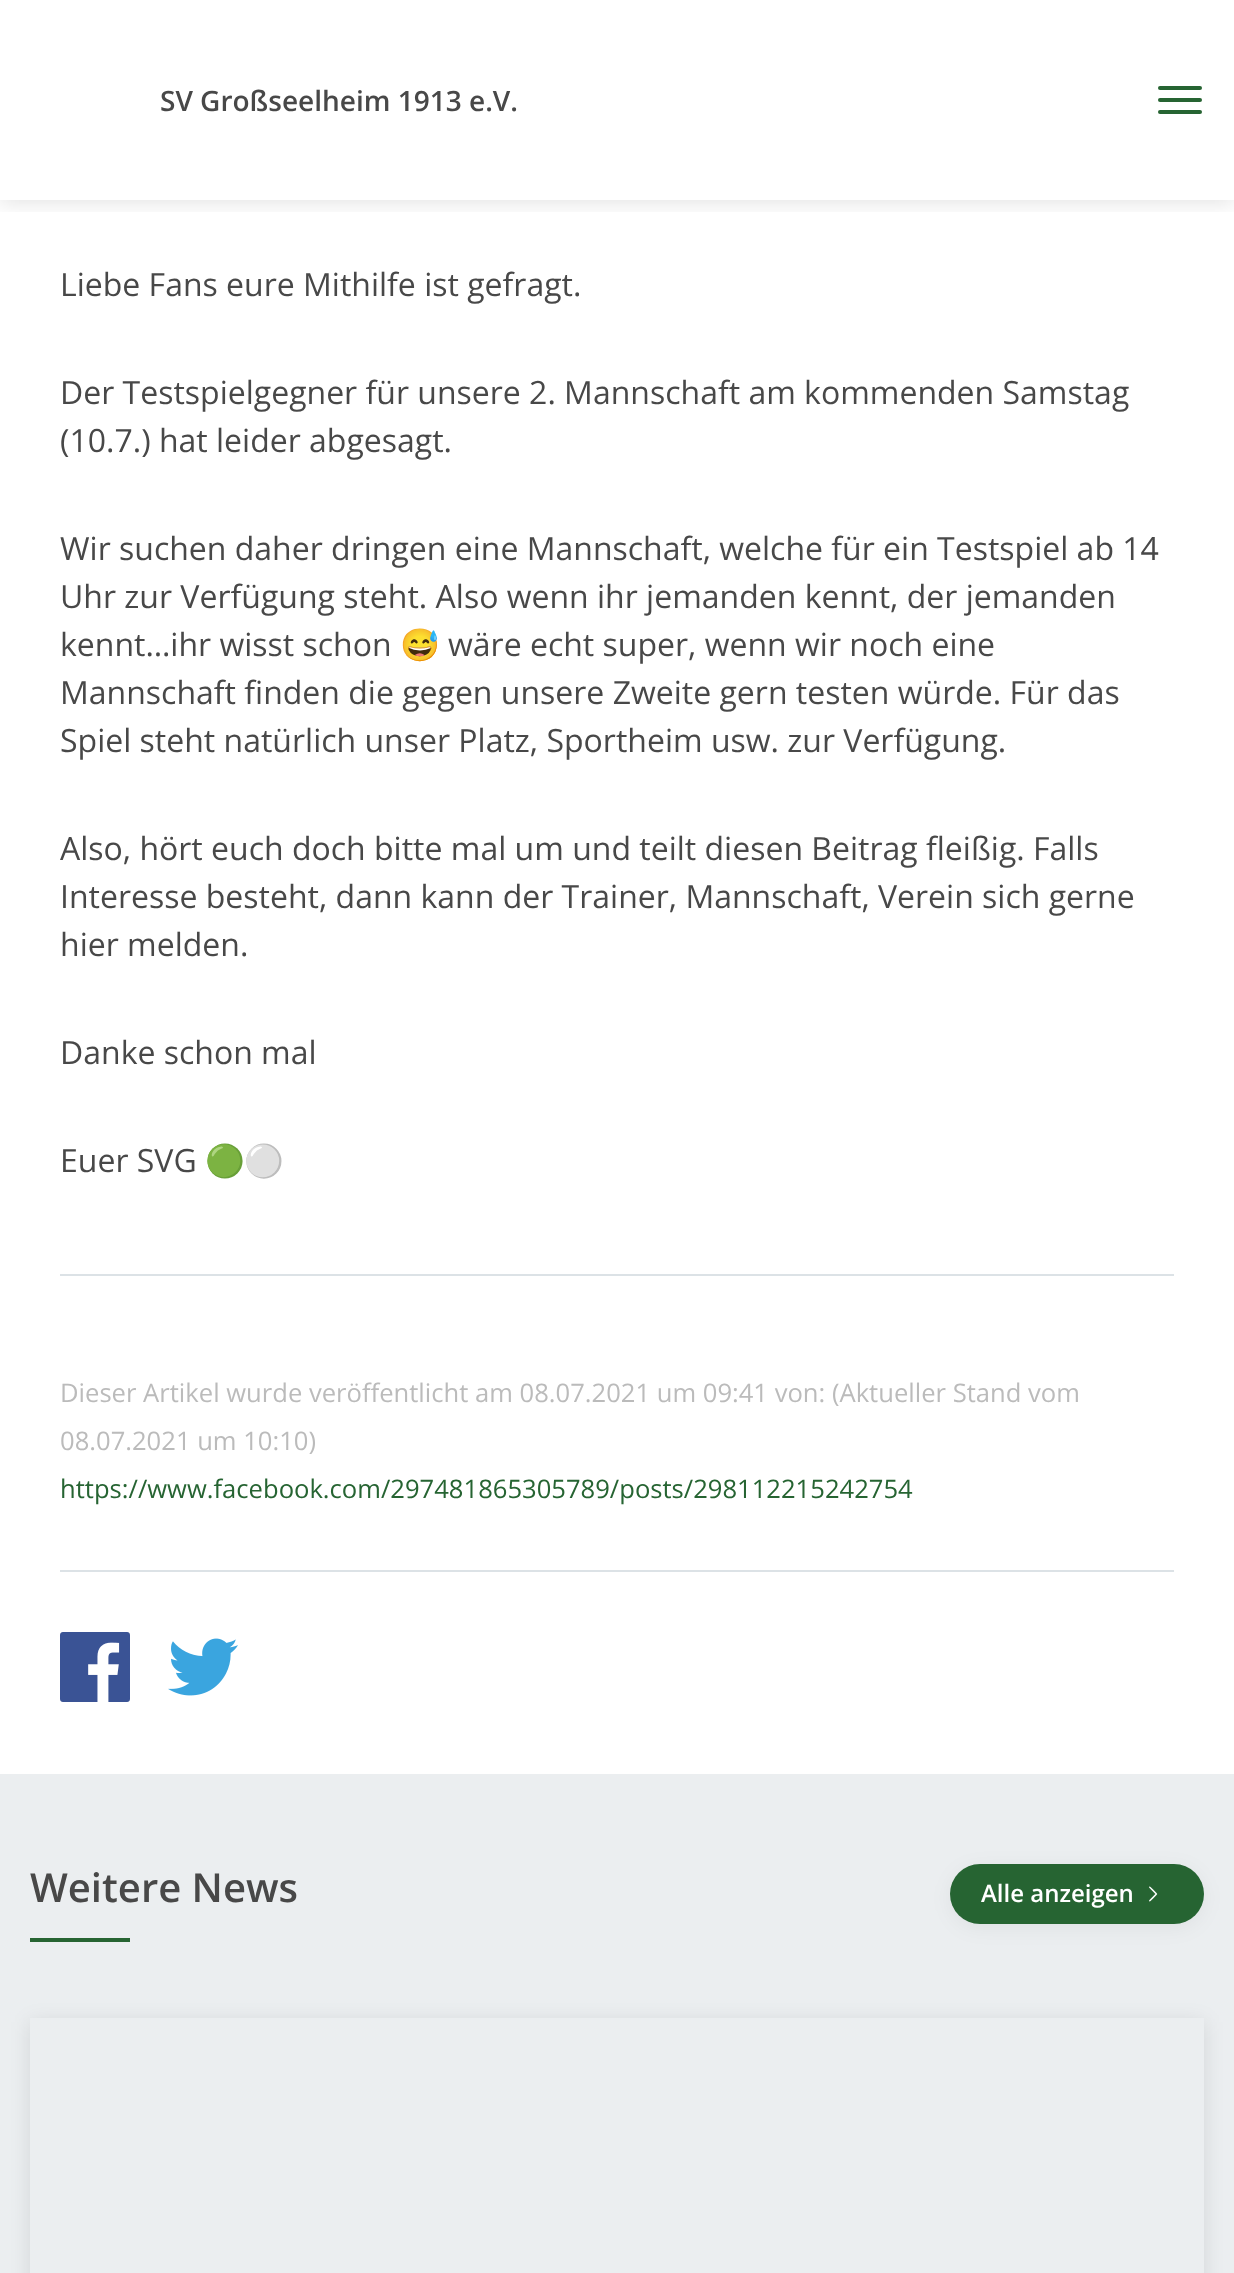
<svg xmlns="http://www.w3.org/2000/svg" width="1234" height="2273">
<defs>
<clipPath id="clip1"><rect x="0" y="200" width="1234" height="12"/></clipPath>
</defs>
<rect width="100%" height="100%" fill="#fff"/>
<g clip-path="url(#clip1)">
<rect y="4" width="1234" height="200" fill="#0000001a" filter="blur(10px)"/>
</g>
<text x="160" y="111" style="font-family:Open Sans;font-size:28px;font-weight:600;fill:#484848">SV Großseelheim 1913 e.V.</text>
<rect x="1158" y="86" width="44" height="4" rx="2" fill="#266432"/>
<rect x="1158" y="98" width="44" height="4" rx="2" fill="#266432"/>
<rect x="1158" y="110" width="44" height="4" rx="2" fill="#266432"/>
<text x="60" y="296" style="font-family:Open Sans;font-size:32px;fill:#484848">Liebe Fans eure Mithilfe ist gefragt.</text>
<text x="60" y="404" style="font-family:Open Sans;font-size:32px;fill:#484848">Der Testspielgegner für unsere 2. Mannschaft am kommenden Samstag</text>
<text x="60" y="452" style="font-family:Open Sans;font-size:32px;fill:#484848">(10.7.) hat leider abgesagt.</text>
<text x="60" y="560" style="font-family:Open Sans;font-size:32px;fill:#484848">Wir suchen daher dringen eine Mannschaft, welche für ein Testspiel ab 14</text>
<text x="60" y="608" style="font-family:Open Sans;font-size:32px;fill:#484848">Uhr zur Verfügung steht. Also wenn ihr jemanden kennt, der jemanden</text>
<text x="60" y="656" style="font-family:Open Sans;font-size:32px;fill:#484848">kennt…ihr wisst schon</text>
<text x="400" y="656" style="font-family:Noto Color Emoji;font-size:32px;fill:#484848">😅</text>
<text x="448" y="656" style="font-family:Open Sans;font-size:32px;fill:#484848">wäre echt super, wenn wir noch eine</text>
<text x="60" y="704" style="font-family:Open Sans;font-size:32px;fill:#484848">Mannschaft finden die gegen unsere Zweite gern testen würde. Für das</text>
<text x="60" y="752" style="font-family:Open Sans;font-size:32px;fill:#484848">Spiel steht natürlich unser Platz, Sportheim usw. zur Verfügung.</text>
<text x="60" y="860" style="font-family:Open Sans;font-size:32px;fill:#484848">Also, hört euch doch bitte mal um und teilt diesen Beitrag fleißig. Falls</text>
<text x="60" y="908" style="font-family:Open Sans;font-size:32px;fill:#484848">Interesse besteht, dann kann der Trainer, Mannschaft, Verein sich gerne</text>
<text x="60" y="956" style="font-family:Open Sans;font-size:32px;fill:#484848">hier melden.</text>
<text x="60" y="1064" style="font-family:Open Sans;font-size:32px;fill:#484848">Danke schon mal</text>
<text x="60" y="1172" style="font-family:Open Sans;font-size:32px;fill:#484848">Euer SVG</text>
<text x="205" y="1172" style="font-family:Noto Color Emoji;font-size:32px;fill:#484848">🟢⚪️</text>
<rect x="60" y="1274" width="1114" height="2" fill="#dce2e6"/>
<rect x="60" y="1570" width="1114" height="2" fill="#dce2e6"/>
<text x="60" y="1402" style="font-family:Open Sans;font-size:25.6px;fill:#bbb">Dieser Artikel wurde veröffentlicht am 08.07.2021 um 09:41 von: (Aktueller Stand vom</text>
<text x="60" y="1450" style="font-family:Open Sans;font-size:25.6px;fill:#bbb">08.07.2021 um 10:10)</text>
<text x="60" y="1498" style="font-family:Open Sans;font-size:25.6px;fill:#266432">https://www.facebook.com/297481865305789/posts/298112215242754</text>
<image x="60" y="1632" width="70" height="70" href="media/1.png"/>
<image x="168" y="1638" width="70" height="58" href="media/2.png"/>
<rect y="1774" width="1234" height="499" fill="#ebeef0"/>
<text x="30" y="1902" style="font-family:Open Sans;font-size:40px;font-weight:600;fill:#484848">Weitere News</text>
<rect x="30" y="1938" width="100" height="4" fill="#266432"/>
<rect x="950" y="1868" width="254" height="60" rx="30" fill="#0000000d" filter="blur(10px)"/>
<rect x="950" y="1864" width="254" height="60" rx="30" fill="#266432"/>
<text x="981" y="1902" style="font-family:Open Sans;font-size:24px;font-weight:600;fill:#fff">Alle anzeigen</text>
<image x="1149" y="1886" width="9" height="16" href="media/3.png"/>
<rect x="30" y="2022" width="1174" height="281" fill="#0000001a" filter="blur(10px)"/>
<rect x="30" y="2018" width="1174" height="255" fill="#ebeef0"/>
</svg>
